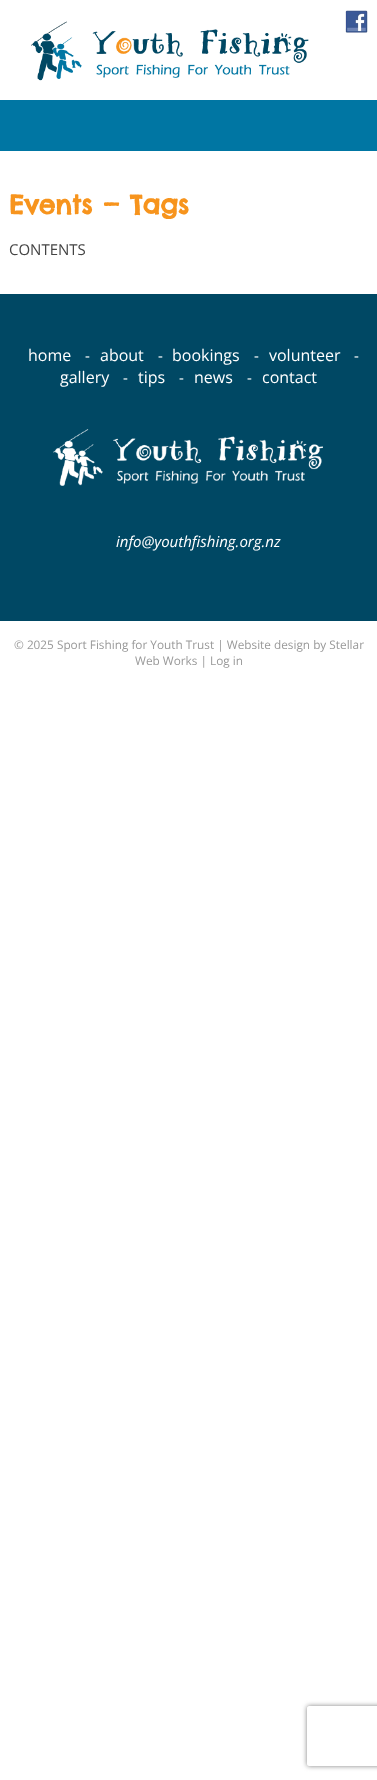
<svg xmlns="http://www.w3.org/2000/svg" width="377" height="1780">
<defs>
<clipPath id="clip1"><path d="M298 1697h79v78h-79zm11 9h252c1 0 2 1 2 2v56c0 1-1 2-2 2h-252c-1 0-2-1-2-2v-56c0-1 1-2 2-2z" clip-rule="evenodd"/></clipPath>
</defs>
<rect width="100%" height="100%" fill="#fff"/>
<image x="31" y="21" width="278" height="60" href="media/1.png"/>
<image x="345" y="10" width="23" height="23" href="media/2.png"/>
<rect y="100" width="377" height="51" fill="#0076a3"/>
<text x="9" y="214" style="font-family:Chelsea Market;font-size:26px;font-weight:bold;fill:#f7941d">Events — Tags</text>
<text x="9" y="255" style="font-family:Open Sans;font-size:15px;fill:#444">CONTENTS</text>
<rect y="294" width="377" height="327" fill="#004864"/>
<text x="28" y="361" style="font-family:Open Sans;font-size:16px;fill:#fff">home</text>
<text x="85" y="361" style="font-family:Open Sans;font-size:15px;fill:#fff">-</text>
<text x="100" y="361" style="font-family:Open Sans;font-size:16px;fill:#fff">about</text>
<text x="158" y="361" style="font-family:Open Sans;font-size:15px;fill:#fff">-</text>
<text x="172" y="361" style="font-family:Open Sans;font-size:16px;fill:#fff">bookings</text>
<text x="254" y="361" style="font-family:Open Sans;font-size:15px;fill:#fff">-</text>
<text x="269" y="361" style="font-family:Open Sans;font-size:16px;fill:#fff">volunteer</text>
<text x="354" y="361" style="font-family:Open Sans;font-size:15px;fill:#fff">-</text>
<text x="60" y="383" style="font-family:Open Sans;font-size:16px;fill:#fff">gallery</text>
<text x="123" y="383" style="font-family:Open Sans;font-size:15px;fill:#fff">-</text>
<text x="138" y="383" style="font-family:Open Sans;font-size:16px;fill:#fff">tips</text>
<text x="179" y="383" style="font-family:Open Sans;font-size:15px;fill:#fff">-</text>
<text x="194" y="383" style="font-family:Open Sans;font-size:16px;fill:#fff">news</text>
<text x="247" y="383" style="font-family:Open Sans;font-size:15px;fill:#fff">-</text>
<text x="262" y="383" style="font-family:Open Sans;font-size:16px;fill:#fff">contact</text>
<image x="53" y="429" width="270" height="57" href="media/3.png"/>
<text x="116" y="547" style="font-family:Open Sans;font-size:15px;font-style:italic;fill:#fff">info@youthfishing.org.nz</text>
<text x="14" y="649" style="font-family:Open Sans;font-size:11.8px;fill:#999">© 2025 Sport Fishing for Youth Trust | Website design by Stellar</text>
<text x="135" y="665" style="font-family:Open Sans;font-size:11.8px;fill:#999">Web Works | Log in</text>
<g clip-path="url(#clip1)">
<rect x="307" y="1706" width="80" height="60" rx="2" fill="#808080" filter="blur(2.5px)"/>
</g>
</svg>
